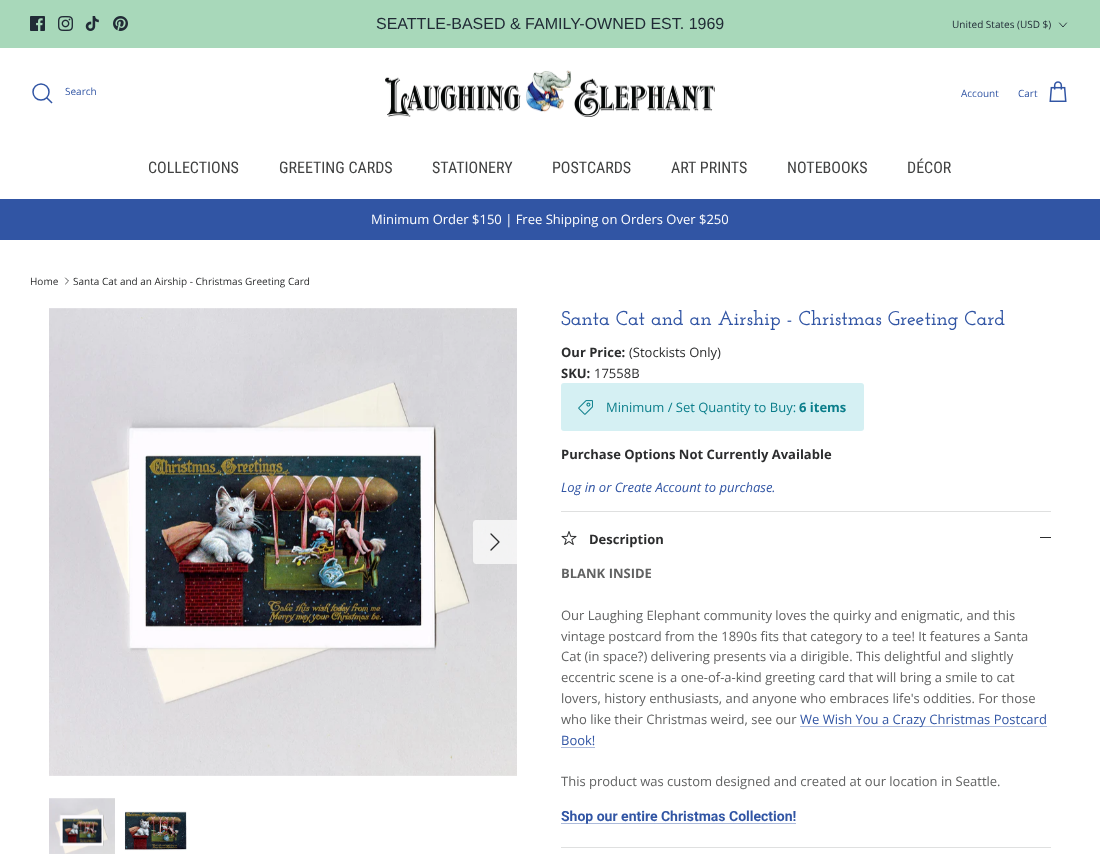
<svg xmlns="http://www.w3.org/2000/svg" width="1100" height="854">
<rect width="100%" height="100%" fill="#fff"/>
<rect width="1100" height="48" fill="#a8d8ba"/>
<image x="30" y="16" width="15" height="15" href="media/1.png"/>
<image x="58" y="16" width="15" height="15" href="media/2.png"/>
<image x="85" y="16" width="14" height="15" href="media/3.png"/>
<image x="113" y="16" width="15" height="15" href="media/4.png"/>
<text x="376" y="29" style="font-family:Liberation Sans;font-size:16px;fill:#212b36">SEATTLE-BASED &amp; FAMILY-OWNED EST. 1969</text>
<text x="952" y="28" style="font-family:Open Sans;font-size:10px;fill:#212b36">United States (USD $)</text>
<path d="M1059.5 23l3.5 4l3.5-4" fill="none" stroke="#212b36" stroke-width="0.9" stroke-linecap="round" stroke-linejoin="round"/>
<circle cx="41" cy="92" r="8" fill="none" stroke="#3155a4" stroke-width="1.5"/>
<text x="65" y="95" style="font-family:Open Sans;font-size:10px;fill:#3155a4">Search</text>
<path d="M47 98l4.5 4.5" fill="none" stroke="#3155a4" stroke-width="1.5" stroke-linecap="square"/>
<image x="385" y="70" width="330" height="47" href="media/5.png"/>
<text x="961" y="97" style="font-family:Open Sans;font-size:10px;fill:#3155a4">Account</text>
<text x="1018" y="97" style="font-family:Open Sans;font-size:10px;fill:#3155a4">Cart</text>
<image x="1049" y="81" width="18" height="21" href="media/6.png"/>
<text x="148" y="173" style="font-family:Roboto Condensed;font-size:16px;fill:#404141">COLLECTIONS</text>
<text x="279" y="173" style="font-family:Roboto Condensed;font-size:16px;fill:#404141">GREETING CARDS</text>
<text x="432" y="173" style="font-family:Roboto Condensed;font-size:16px;fill:#404141">STATIONERY</text>
<text x="552" y="173" style="font-family:Roboto Condensed;font-size:16px;fill:#404141">POSTCARDS</text>
<text x="671" y="173" style="font-family:Roboto Condensed;font-size:16px;fill:#404141">ART PRINTS</text>
<text x="787" y="173" style="font-family:Roboto Condensed;font-size:16px;fill:#404141">NOTEBOOKS</text>
<text x="907" y="173" style="font-family:Roboto Condensed;font-size:16px;fill:#404141">DÉCOR</text>
<rect y="199" width="1100" height="41" fill="#3155a4"/>
<text x="371" y="224" style="font-family:Open Sans;font-size:13px;fill:#fff">Minimum Order $150 | Free Shipping on Orders Over $250</text>
<text x="30" y="285" style="font-family:Open Sans;font-size:10px;fill:#2c2d2e">Home</text>
<path d="M65.5 284l3-3l-3-3" fill="none" stroke="#2c2d2e" stroke-width="0.8" stroke-linecap="round" stroke-linejoin="round"/>
<text x="73" y="285" style="font-family:Open Sans;font-size:10px;fill:#2c2d2e">Santa Cat and an Airship - Christmas Greeting Card</text>
<image x="49" y="308" width="468" height="468" href="media/7.png"/>
<path d="M476 520h41v44h-41c-1.5 0-3-1.5-3-3v-38c0-1.5 1.5-3 3-3z" fill="#ffffffb3"/>
<path d="M491 550l8-8l-8-8" fill="none" stroke="#2c2d2e" stroke-width="1.3" stroke-linecap="round" stroke-linejoin="round"/>
<image x="49" y="798" width="66" height="56" href="media/8.png"/>
<image x="124" y="811" width="63" height="40" href="media/9.png"/>
<text x="561" y="325" style="font-family:Josefin Slab;font-size:20px;font-weight:600;fill:#3155a4">Santa Cat and an Airship - Christmas Greeting Card</text>
<text x="561" y="357" style="font-family:Open Sans;font-size:13px;font-weight:bold;fill:#2c2d2e">Our Price:</text>
<text x="629" y="357" style="font-family:Open Sans;font-size:13px;fill:#2c2d2e">(Stockists Only)</text>
<text x="561" y="378" style="font-family:Open Sans;font-size:13px;font-weight:bold;fill:#2c2d2e">SKU:</text>
<text x="594" y="378" style="font-family:Open Sans;font-size:13px;fill:#2c2d2e">17558B</text>
<rect x="561" y="383" width="303" height="48" rx="3" fill="#d5f0f3"/>
<image x="578" y="400" width="15" height="15" href="media/10.png"/>
<text x="606" y="412" style="font-family:Open Sans;font-size:13px;fill:#0b7e8b">Minimum / Set Quantity to Buy:</text>
<text x="799" y="412" style="font-family:Open Sans;font-size:13px;font-weight:bold;fill:#0b7e8b">6 items</text>
<text x="561" y="459" style="font-family:Open Sans;font-size:13px;font-weight:bold;fill:#2c2d2e">Purchase Options Not Currently Available</text>
<text x="561" y="492" style="font-family:Open Sans;font-size:13px;font-style:italic;fill:#3155a4">Log in or Create Account to purchase.</text>
<rect x="561" y="511" width="490" height="1" fill="#dfe0e0"/>
<rect x="561" y="847" width="490" height="1" fill="#dfe0e0"/>
<image x="561" y="531" width="16" height="14" href="media/11.png"/>
<text x="589" y="544" style="font-family:Open Sans;font-size:13px;font-weight:bold;fill:#2c2d2e">Description</text>
<rect x="1040" y="537" width="11" height="1" fill="#2c2d2e"/>
<text x="561" y="578" style="font-family:Open Sans;font-size:13px;font-weight:bold;fill:#616262">BLANK INSIDE</text>
<text x="561" y="620" style="font-family:Open Sans;font-size:13px;fill:#616262">Our Laughing Elephant community loves the quirky and enigmatic, and this</text>
<text x="561" y="641" style="font-family:Open Sans;font-size:13px;fill:#616262">vintage postcard from the 1890s fits that category to a tee! It features a Santa</text>
<text x="561" y="661" style="font-family:Open Sans;font-size:13px;fill:#616262">Cat (in space?) delivering presents via a dirigible. This delightful and slightly</text>
<text x="561" y="682" style="font-family:Open Sans;font-size:13px;fill:#616262">eccentric scene is a one-of-a-kind greeting card that will bring a smile to cat</text>
<text x="561" y="703" style="font-family:Open Sans;font-size:13px;fill:#616262">lovers, history enthusiasts, and anyone who embraces life's oddities. For those</text>
<text x="561" y="724" style="font-family:Open Sans;font-size:13px;fill:#616262">who like their Christmas weird, see our</text>
<rect x="800" y="726" width="247" height="1" fill="#adbbdb"/>
<text x="800" y="724" style="font-family:Open Sans;font-size:13px;fill:#3155a4">We Wish You a Crazy Christmas Postcard</text>
<text x="561" y="745" style="font-family:Open Sans;font-size:13px;fill:#3155a4">Book!</text>
<rect x="561" y="747" width="34" height="1" fill="#adbbdb"/>
<text x="561" y="786" style="font-family:Open Sans;font-size:13px;fill:#616262">This product was custom designed and created at our location in Seattle.</text>
<rect x="561" y="823" width="235" height="1" fill="#adbbdb"/>
<text x="561" y="821" style="font-family:Roboto;font-size:14px;font-weight:bold;fill:#3155a4">Shop our entire Christmas Collection!</text>
</svg>
